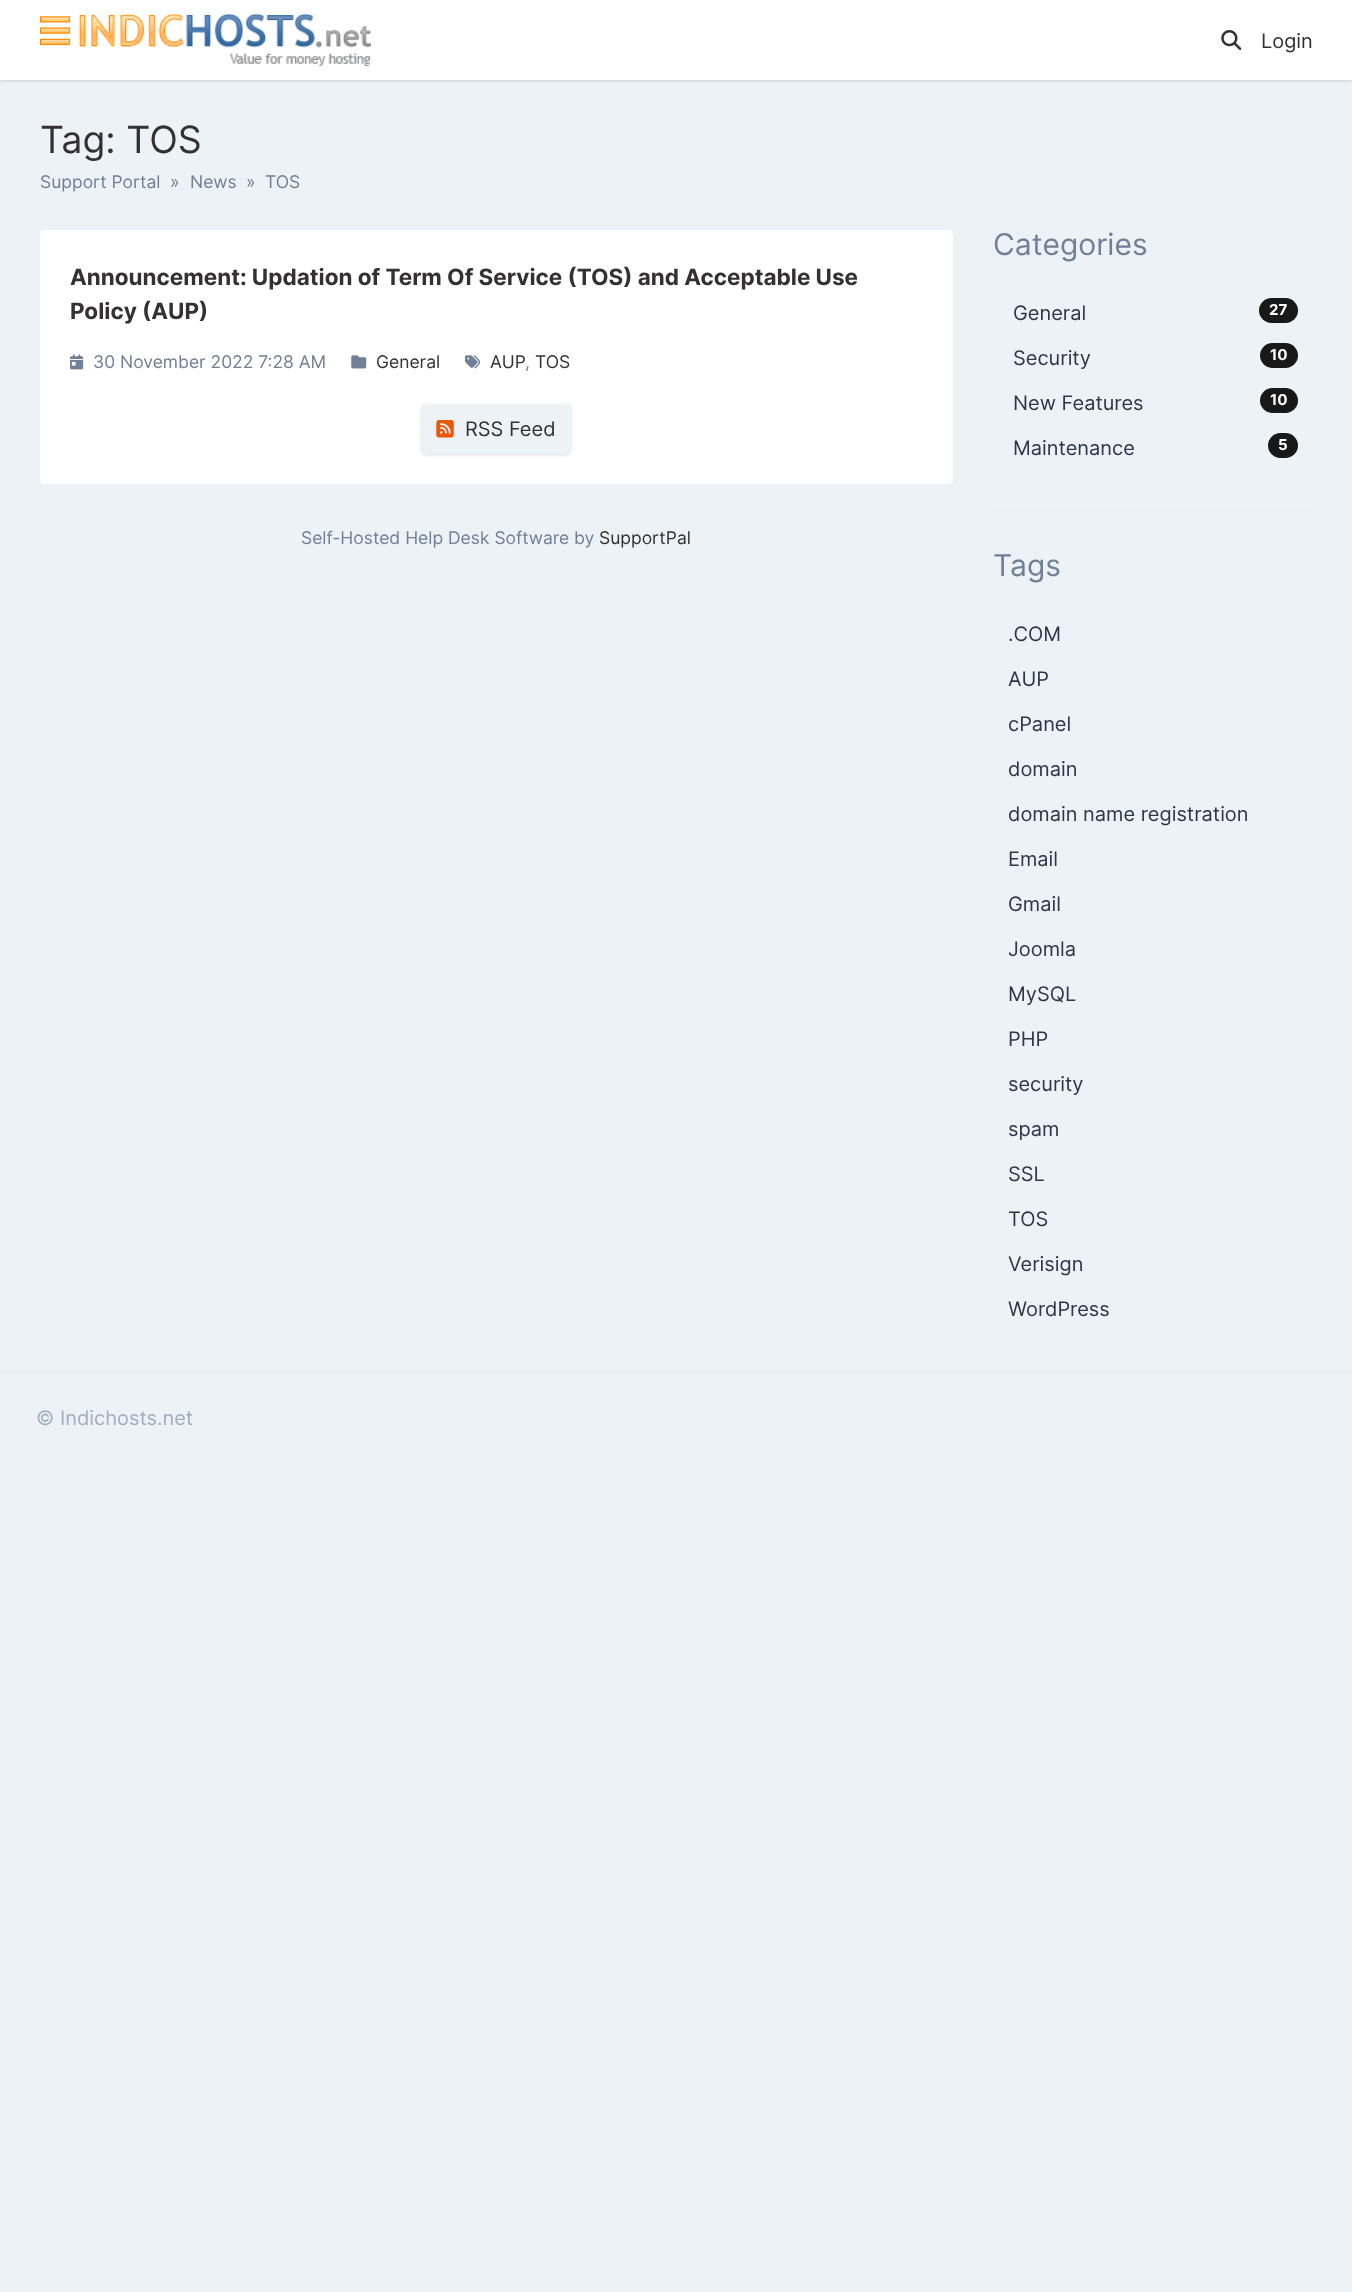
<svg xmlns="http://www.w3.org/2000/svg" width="1352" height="2292">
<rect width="100%" height="100%" fill="#edf2f7"/>
<rect x="1" y="3" width="1350" height="77" fill="#0000001a" filter="blur(1px)"/>
<rect y="1" width="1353" height="80" fill="#0000001a" filter="blur(2px)"/>
<rect width="1352" height="80" fill="#fff"/>
<image x="40" y="14" width="331" height="52" href="media/1.png"/>
<image x="1221" y="30" width="21" height="20" href="media/2.png"/>
<text x="1261" y="48" style="font-family:Inter;font-size:20px;fill:#333131">Login</text>
<text x="40" y="153" style="font-family:Inter;font-size:37.5px;fill:#333131">Tag: TOS</text>
<text x="40" y="188" style="font-family:Inter;font-size:17.5px;fill:#718096">Support Portal</text>
<text x="170" y="188" style="font-family:Inter;font-size:17.5px;fill:#718096">»</text>
<text x="190" y="188" style="font-family:Inter;font-size:17.5px;fill:#718096">News</text>
<text x="246" y="188" style="font-family:Inter;font-size:17.5px;fill:#718096">»</text>
<text x="265" y="188" style="font-family:Inter;font-size:17.5px;fill:#718096">TOS</text>
<rect x="40" y="230" width="913" height="254" rx="5" fill="#fff"/>
<text x="70" y="285" style="font-family:Inter;font-size:22.5px;font-weight:bold;fill:#333131">Announcement: Updation of Term Of Service (TOS) and Acceptable Use</text>
<text x="70" y="319" style="font-family:Inter;font-size:22.5px;font-weight:bold;fill:#333131">Policy (AUP)</text>
<image x="70" y="354" width="14" height="16" href="media/3.png"/>
<text x="93" y="368" style="font-family:Inter;font-size:17.5px;fill:#718096">30 November 2022 7:28 AM</text>
<image x="351" y="355" width="16" height="14" href="media/4.png"/>
<text x="376" y="368" style="font-family:Inter;font-size:17.5px;fill:#333131">General</text>
<image x="465" y="355" width="15" height="14" href="media/5.png"/>
<text x="490" y="368" style="font-family:Inter;font-size:17.5px;fill:#333131">AUP</text>
<text x="525" y="368" style="font-family:Inter;font-size:17.5px;fill:#718096">,</text>
<text x="535" y="368" style="font-family:Inter;font-size:17.5px;fill:#333131">TOS</text>
<rect x="423" y="406" width="147" height="48" rx="4" fill="#0000001a" filter="blur(1px)"/>
<rect x="421" y="405" width="150" height="50" rx="5" fill="#0000001a" filter="blur(2px)"/>
<rect x="421" y="404" width="150" height="50" rx="5" fill="#edf2f7"/>
<image x="436" y="420" width="18" height="18" href="media/6.png"/>
<text x="465" y="436" style="font-family:Inter;font-size:20px;fill:#333131">RSS Feed</text>
<text x="301" y="544" style="font-family:Inter;font-size:17.5px;fill:#718096">Self-Hosted Help Desk Software by</text>
<text x="599" y="544" style="font-family:Inter;font-size:17.5px;fill:#333131">SupportPal</text>
<text x="993" y="255" style="font-family:Inter;font-size:30px;fill:#718096">Categories</text>
<text x="1013" y="320" style="font-family:Inter;font-size:20px;fill:#2d3748">General</text>
<rect x="1259" y="298" width="39" height="25" rx="12.5" fill="#191818"/>
<text x="1269" y="315" style="font-family:Inter;font-size:15px;font-weight:bold;fill:#fff">27</text>
<text x="1013" y="365" style="font-family:Inter;font-size:20px;fill:#2d3748">Security</text>
<rect x="1260" y="343" width="38" height="25" rx="12.5" fill="#191818"/>
<text x="1270" y="360" style="font-family:Inter;font-size:15px;font-weight:bold;fill:#fff">10</text>
<text x="1013" y="410" style="font-family:Inter;font-size:20px;fill:#2d3748">New Features</text>
<rect x="1260" y="388" width="38" height="25" rx="12.5" fill="#191818"/>
<text x="1270" y="405" style="font-family:Inter;font-size:15px;font-weight:bold;fill:#fff">10</text>
<text x="1013" y="455" style="font-family:Inter;font-size:20px;fill:#2d3748">Maintenance</text>
<rect x="1268" y="433" width="30" height="25" rx="12.5" fill="#191818"/>
<text x="1278" y="450" style="font-family:Inter;font-size:15px;font-weight:bold;fill:#fff">5</text>
<rect x="993" y="510" width="320" height="1" fill="#e2e8f0"/>
<text x="993" y="576" style="font-family:Inter;font-size:30px;fill:#718096">Tags</text>
<text x="1008" y="641" style="font-family:Inter;font-size:20px;fill:#2d3748">.COM</text>
<text x="1008" y="686" style="font-family:Inter;font-size:20px;fill:#2d3748">AUP</text>
<text x="1008" y="731" style="font-family:Inter;font-size:20px;fill:#2d3748">cPanel</text>
<text x="1008" y="776" style="font-family:Inter;font-size:20px;fill:#2d3748">domain</text>
<text x="1008" y="821" style="font-family:Inter;font-size:20px;fill:#2d3748">domain name registration</text>
<text x="1008" y="866" style="font-family:Inter;font-size:20px;fill:#2d3748">Email</text>
<text x="1008" y="911" style="font-family:Inter;font-size:20px;fill:#2d3748">Gmail</text>
<text x="1008" y="956" style="font-family:Inter;font-size:20px;fill:#2d3748">Joomla</text>
<text x="1008" y="1001" style="font-family:Inter;font-size:20px;fill:#2d3748">MySQL</text>
<text x="1008" y="1046" style="font-family:Inter;font-size:20px;fill:#2d3748">PHP</text>
<text x="1008" y="1091" style="font-family:Inter;font-size:20px;fill:#2d3748">security</text>
<text x="1008" y="1136" style="font-family:Inter;font-size:20px;fill:#2d3748">spam</text>
<text x="1008" y="1181" style="font-family:Inter;font-size:20px;fill:#2d3748">SSL</text>
<text x="1008" y="1226" style="font-family:Inter;font-size:20px;fill:#2d3748">TOS</text>
<text x="1008" y="1271" style="font-family:Inter;font-size:20px;fill:#2d3748">Verisign</text>
<text x="1008" y="1316" style="font-family:Inter;font-size:20px;fill:#2d3748">WordPress</text>
<rect y="1371" width="1352" height="1" fill="#e2e8f0"/>
<text x="36" y="1425" style="font-family:Inter;font-size:20px;fill:#a0aec0">© Indichosts.net</text>
</svg>
